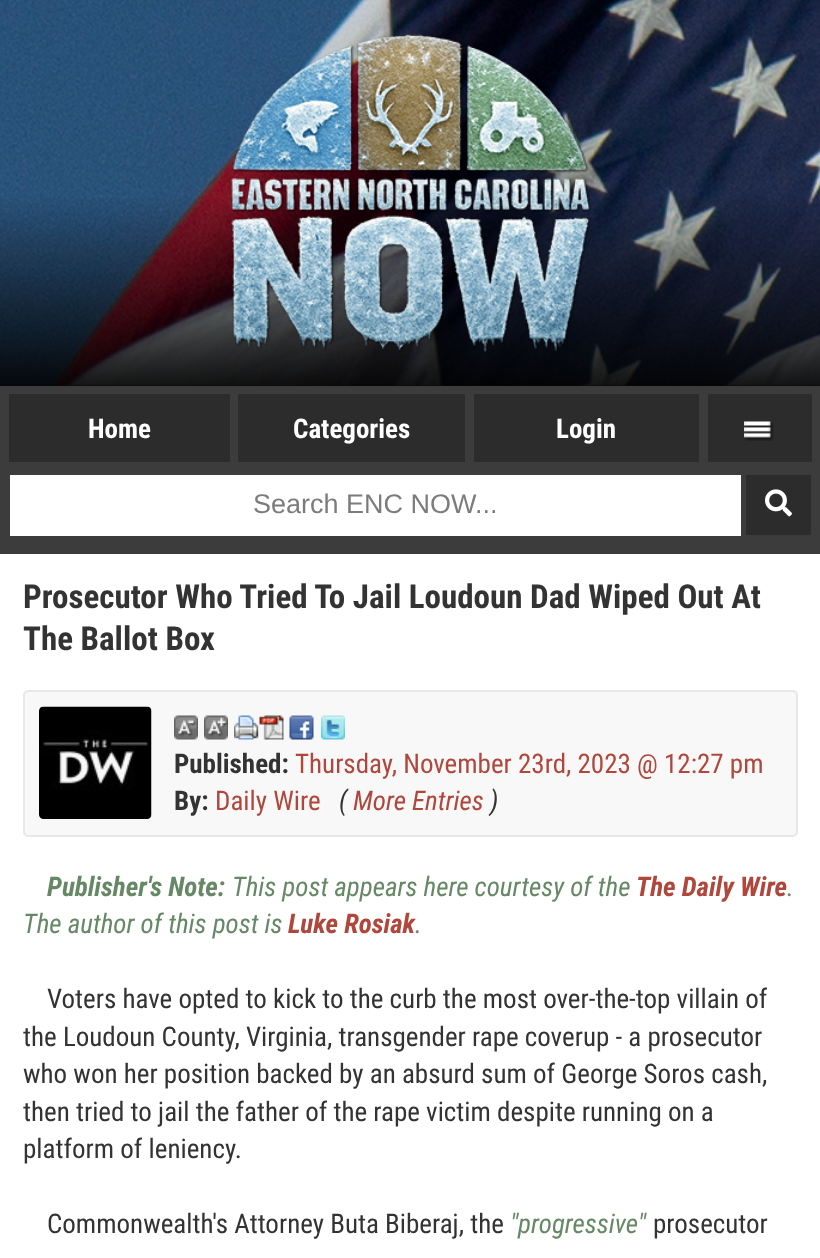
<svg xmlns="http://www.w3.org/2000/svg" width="820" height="1258">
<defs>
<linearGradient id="g1" gradientUnits="userSpaceOnUse" x1="410" y1="0" x2="410" y2="386"><stop offset="0.5" stop-color="#000" stop-opacity="0"/><stop offset="1" stop-color="#000" stop-opacity="0.9"/></linearGradient>
</defs>
<rect width="100%" height="100%" fill="#3c3c3c"/>
<image x="0" y="0" width="820" height="386" href="media/1.png"/>
<rect y="198" width="820" height="188" fill="url(#g1)"/>
<image x="230" y="34" width="361" height="318" href="media/2.png"/>
<rect x="5" y="390" width="229" height="72" rx="5" fill="#2c2c2c"/>
<path d="M9 390h221c2 0 4 2 4 4v64c0 2-2 4-4 4h-221c-2 0-5-2-5-4v-64c0-2 3-4 5-4zm0 4h221v68h-221v-4z" fill="#3c3c3c" fill-rule="evenodd"/>
<text x="88" y="438" style="font-family:Roboto Condensed;font-size:27px;font-weight:bold;fill:#fff">Home</text>
<rect x="234" y="390" width="236" height="72" rx="5" fill="#2c2c2c"/>
<path d="M238 390h227c2 0 5 2 5 4v64c0 2-3 4-5 4h-227c-2 0-4-2-4-4v-64c0-2 2-4 4-4zm0 4h227v68h-227v-4z" fill="#3c3c3c" fill-rule="evenodd"/>
<text x="293" y="438" style="font-family:Roboto Condensed;font-size:27px;font-weight:bold;fill:#fff">Categories</text>
<rect x="470" y="390" width="234" height="72" rx="5" fill="#2c2c2c"/>
<path d="M474 390h225c2 0 5 2 5 4v64c0 2-3 4-5 4h-225c-2 0-4-2-4-4v-64c0-2 2-4 4-4zm0 4h225v68h-225v-4z" fill="#3c3c3c" fill-rule="evenodd"/>
<text x="556" y="438" style="font-family:Roboto Condensed;font-size:27px;font-weight:bold;fill:#fff">Login</text>
<rect x="704" y="390" width="112" height="72" rx="5" fill="#2c2c2c"/>
<path d="M708 390h104c2 0 4 2 4 4v64c0 2-2 4-4 4h-104c-2 0-4-2-4-4v-64c0-2 2-4 4-4zm0 4h104v68h-104v-4z" fill="#3c3c3c" fill-rule="evenodd"/>
<image x="744" y="421" width="30" height="20" href="media/3.png"/>
<rect x="10" y="475" width="731" height="61" fill="#fff"/>
<text x="253" y="513" style="font-family:Liberation Sans;font-size:27px;fill:#7c7c7c">Search ENC NOW...</text>
<rect x="746" y="475" width="65" height="60" fill="#2c2c2c"/>
<image x="765" y="489" width="27" height="28" href="media/4.png"/>
<rect y="554" width="820" height="704" fill="#fff"/>
<text x="23" y="608" style="font-family:Roboto Condensed;font-size:33px;font-weight:bold;fill:#333">Prosecutor Who Tried To Jail Loudoun Dad Wiped Out At</text>
<text x="23" y="650" style="font-family:Roboto Condensed;font-size:33px;font-weight:bold;fill:#333">The Ballot Box</text>
<rect x="24" y="691" width="773" height="145" rx="4" fill="#f8f8f8" stroke="#e8e8e8" stroke-width="2"/>
<image x="39" y="706" width="113" height="113" href="media/5.png"/>
<image x="174" y="715" width="24" height="25" href="media/6.png"/>
<image x="204" y="715" width="24" height="25" href="media/7.png"/>
<image x="234" y="715" width="50" height="25" href="media/8.png"/>
<image x="289" y="715" width="25" height="25" href="media/9.png"/>
<image x="321" y="715" width="24" height="25" href="media/10.png"/>
<text x="174" y="773" style="font-family:Roboto Condensed;font-size:27px;font-weight:bold;fill:#333">Published:</text>
<text x="295" y="773" style="font-family:Roboto Condensed;font-size:27px;fill:#af473c">Thursday, November 23rd, 2023 @ 12:27 pm</text>
<text x="174" y="810" style="font-family:Roboto Condensed;font-size:27px;font-weight:bold;fill:#333">By:</text>
<text x="215" y="810" style="font-family:Roboto Condensed;font-size:27px;fill:#af473c">Daily Wire</text>
<text x="339" y="810" style="font-family:Roboto Condensed;font-size:27px;font-style:italic;fill:#333">(</text>
<text x="353" y="810" style="font-family:Roboto Condensed;font-size:27px;font-style:italic;fill:#af473c">More Entries</text>
<text x="490" y="810" style="font-family:Roboto Condensed;font-size:27px;font-style:italic;fill:#333">)</text>
<text x="47" y="896" style="font-family:Roboto Condensed;font-size:27px;font-weight:bold;font-style:italic;fill:#686">Publisher's Note:</text>
<text x="232" y="896" style="font-family:Roboto Condensed;font-size:27px;font-style:italic;fill:#686">This post appears here courtesy of the</text>
<text x="636" y="896" style="font-family:Roboto Condensed;font-size:27px;font-weight:bold;font-style:italic;fill:#af473c">The Daily Wire</text>
<text x="787" y="896" style="font-family:Roboto Condensed;font-size:27px;font-style:italic;fill:#686">.</text>
<text x="23" y="933" style="font-family:Roboto Condensed;font-size:27px;font-style:italic;fill:#686">The author of this post is</text>
<text x="288" y="933" style="font-family:Roboto Condensed;font-size:27px;font-weight:bold;font-style:italic;fill:#af473c">Luke Rosiak</text>
<text x="415" y="933" style="font-family:Roboto Condensed;font-size:27px;font-style:italic;fill:#686">.</text>
<text x="47" y="1008" style="font-family:Roboto Condensed;font-size:27px;fill:#333">Voters have opted to kick to the curb the most over-the-top villain of</text>
<text x="23" y="1046" style="font-family:Roboto Condensed;font-size:27px;fill:#333">the Loudoun County, Virginia, transgender rape coverup - a prosecutor</text>
<text x="23" y="1083" style="font-family:Roboto Condensed;font-size:27px;fill:#333">who won her position backed by an absurd sum of George Soros cash,</text>
<text x="23" y="1121" style="font-family:Roboto Condensed;font-size:27px;fill:#333">then tried to jail the father of the rape victim despite running on a</text>
<text x="23" y="1158" style="font-family:Roboto Condensed;font-size:27px;fill:#333">platform of leniency.</text>
<text x="47" y="1233" style="font-family:Roboto Condensed;font-size:27px;fill:#333">Commonwealth's Attorney Buta Biberaj, the</text>
<text x="510" y="1233" style="font-family:Roboto Condensed;font-size:27px;font-style:italic;fill:#686">"progressive"</text>
<text x="653" y="1233" style="font-family:Roboto Condensed;font-size:27px;fill:#333">prosecutor</text>
</svg>
